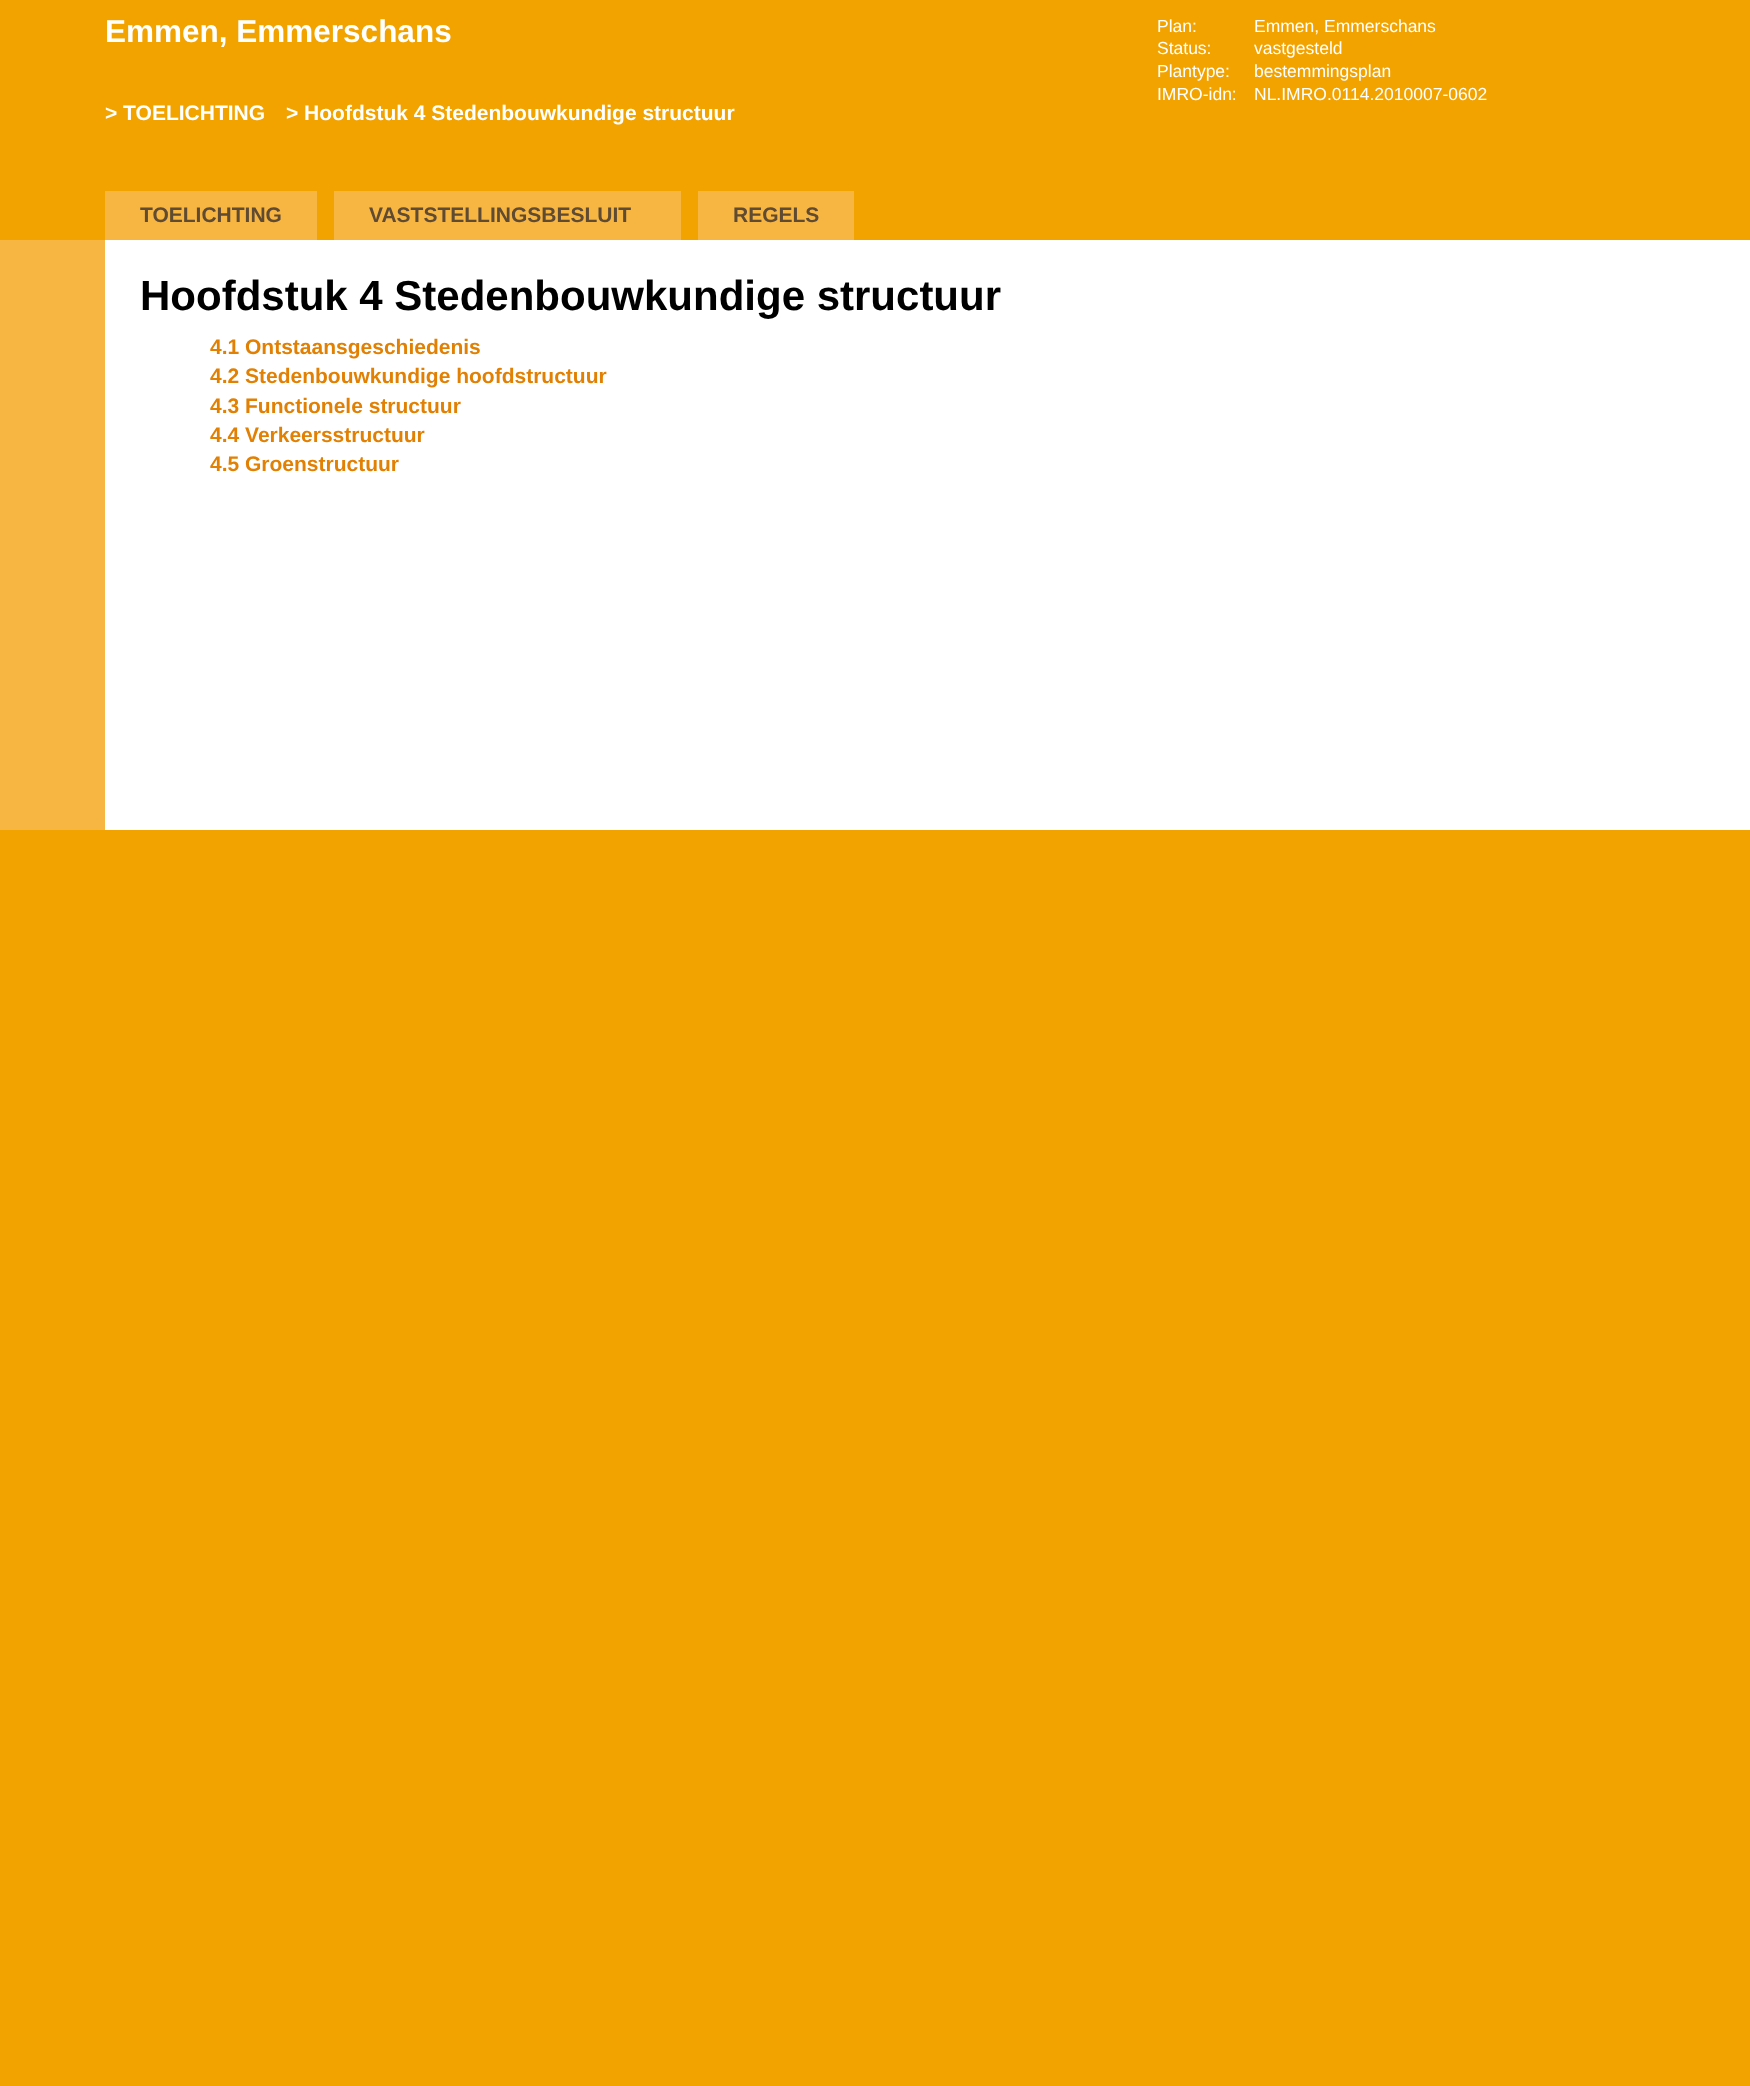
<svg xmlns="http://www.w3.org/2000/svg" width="1750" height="2086">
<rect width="100%" height="100%" fill="#f3a300"/>
<text x="105" y="42" style="font-family:Liberation Sans;font-size:31.5px;font-weight:bold;fill:#fff">Emmen, Emmerschans</text>
<text x="105" y="120" style="font-family:Liberation Sans;font-size:21px;font-weight:bold;fill:#fff">&gt; TOELICHTING</text>
<text x="286" y="120" style="font-family:Liberation Sans;font-size:21px;font-weight:bold;fill:#fff">&gt; Hoofdstuk 4 Stedenbouwkundige structuur</text>
<text x="1157" y="32" style="font-family:Liberation Sans;font-size:17.5px;fill:#fff">Plan:</text>
<text x="1254" y="32" style="font-family:Liberation Sans;font-size:17.5px;fill:#fff">Emmen, Emmerschans</text>
<text x="1157" y="54" style="font-family:Liberation Sans;font-size:17.5px;fill:#fff">Status:</text>
<text x="1254" y="54" style="font-family:Liberation Sans;font-size:17.5px;fill:#fff">vastgesteld</text>
<text x="1157" y="77" style="font-family:Liberation Sans;font-size:17.5px;fill:#fff">Plantype:</text>
<text x="1254" y="77" style="font-family:Liberation Sans;font-size:17.5px;fill:#fff">bestemmingsplan</text>
<text x="1157" y="100" style="font-family:Liberation Sans;font-size:17.5px;fill:#fff">IMRO-idn:</text>
<text x="1254" y="100" style="font-family:Liberation Sans;font-size:17.5px;fill:#fff">NL.IMRO.0114.2010007-0602</text>
<rect x="105" y="191" width="212" height="49" fill="#f7b542"/>
<text x="140" y="222" style="font-family:Liberation Sans;font-size:21px;font-weight:bold;fill:#5f4a32">TOELICHTING</text>
<rect x="334" y="191" width="347" height="49" fill="#f7b542"/>
<text x="369" y="222" style="font-family:Liberation Sans;font-size:21px;font-weight:bold;fill:#5f4a32">VASTSTELLINGSBESLUIT</text>
<rect x="698" y="191" width="156" height="49" fill="#f7b542"/>
<text x="733" y="222" style="font-family:Liberation Sans;font-size:21px;font-weight:bold;fill:#5f4a32">REGELS</text>
<rect x="105" y="240" width="1645" height="590" fill="#fff"/>
<rect y="240" width="105" height="590" fill="#f7b542"/>
<text x="140" y="310" style="font-family:Liberation Sans;font-size:42px;font-weight:bold;fill:#000">Hoofdstuk 4 Stedenbouwkundige structuur</text>
<text x="210" y="354" style="font-family:Liberation Sans;font-size:21px;font-weight:bold;fill:#e28003">4.1 Ontstaansgeschiedenis</text>
<text x="210" y="383" style="font-family:Liberation Sans;font-size:21px;font-weight:bold;fill:#e28003">4.2 Stedenbouwkundige hoofdstructuur</text>
<text x="210" y="413" style="font-family:Liberation Sans;font-size:21px;font-weight:bold;fill:#e28003">4.3 Functionele structuur</text>
<text x="210" y="442" style="font-family:Liberation Sans;font-size:21px;font-weight:bold;fill:#e28003">4.4 Verkeersstructuur</text>
<text x="210" y="471" style="font-family:Liberation Sans;font-size:21px;font-weight:bold;fill:#e28003">4.5 Groenstructuur</text>
</svg>
